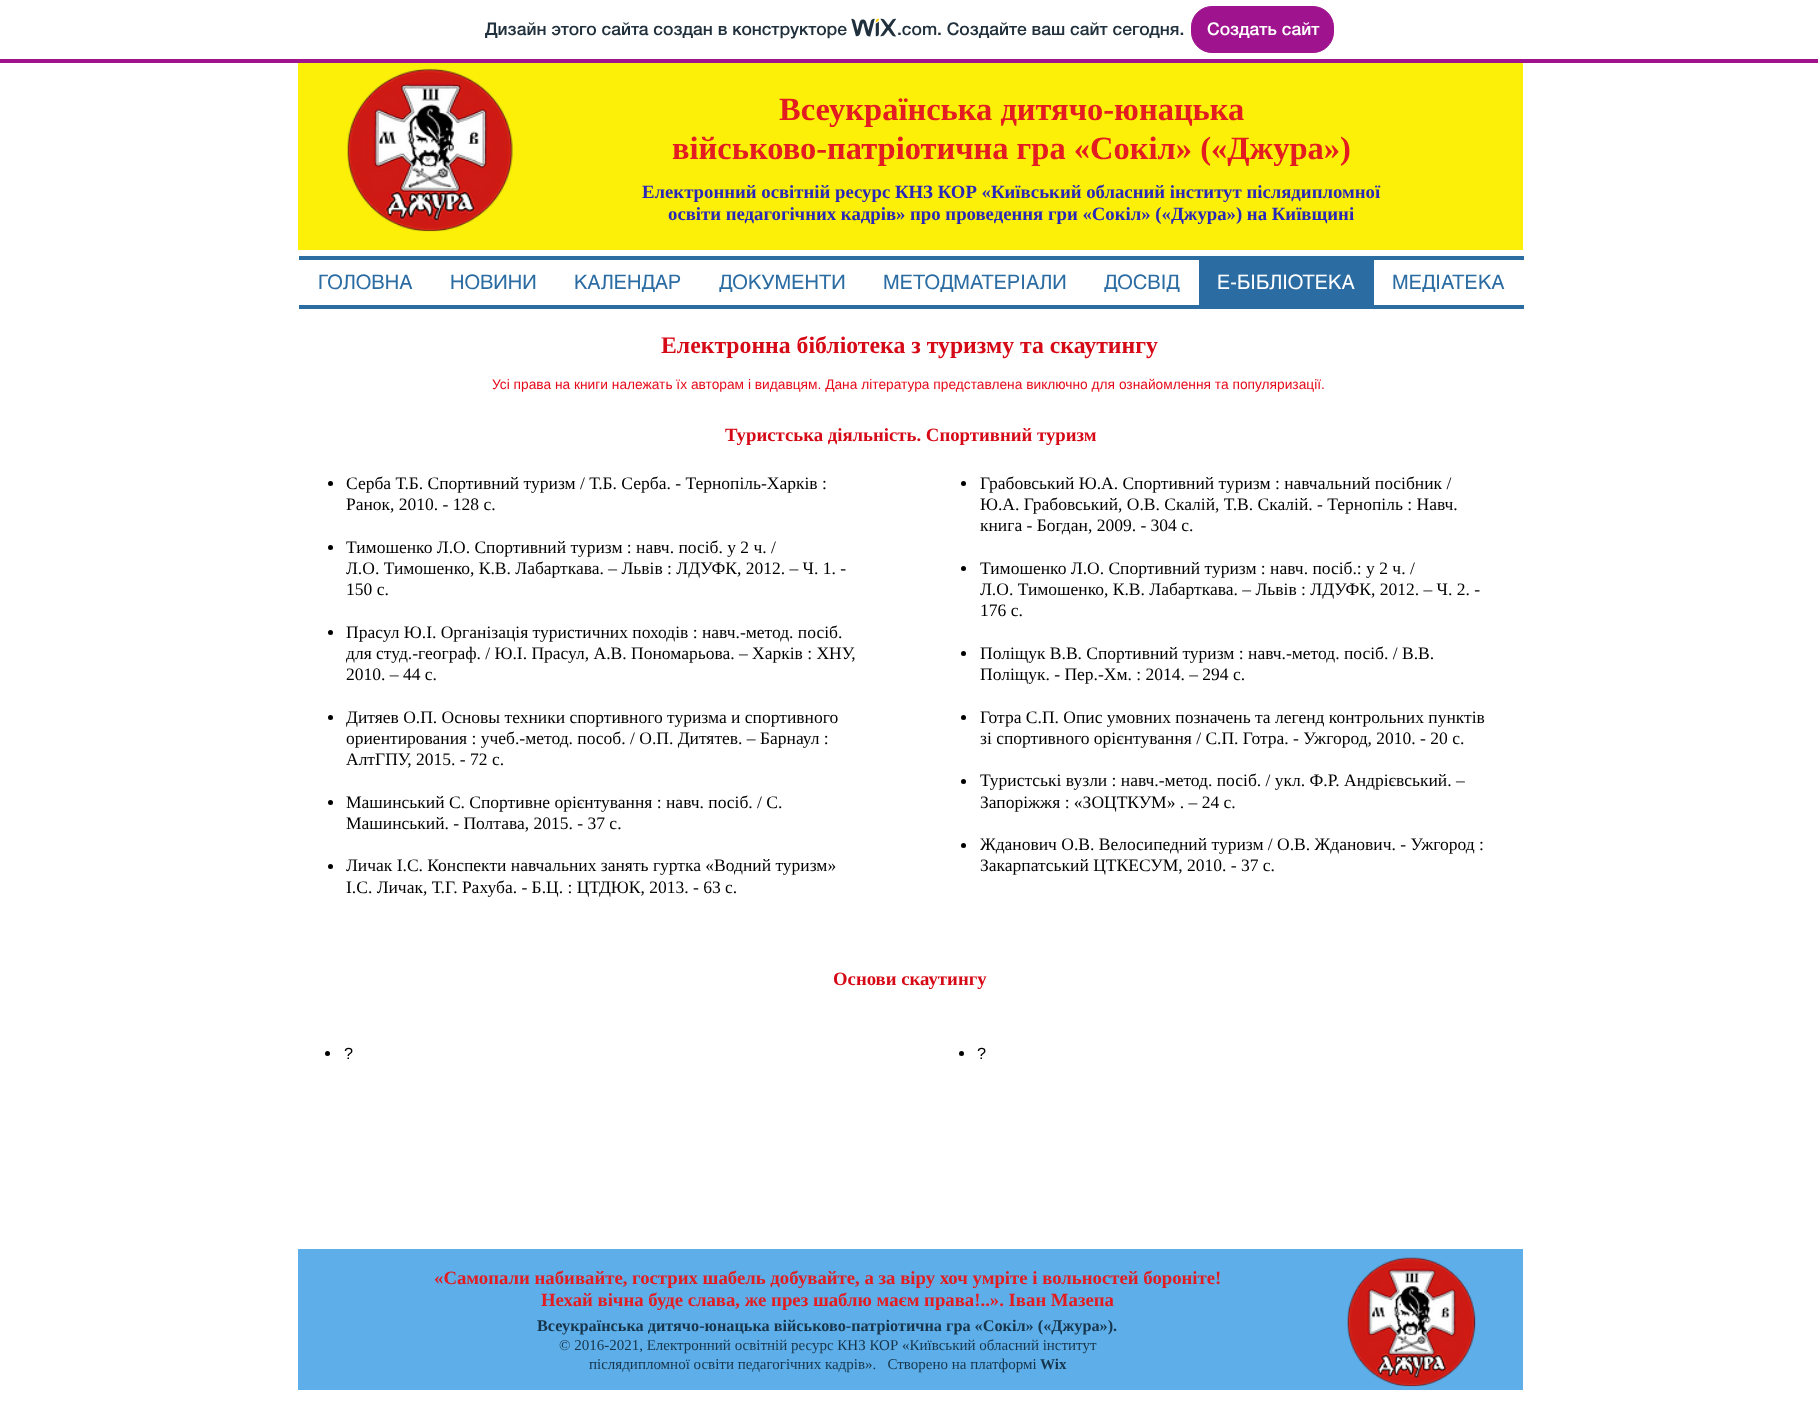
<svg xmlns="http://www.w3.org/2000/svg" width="1818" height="1419">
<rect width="100%" height="100%" fill="#fff"/>
<rect y="59" width="1818" height="4" fill="#a0138e"/>
<text x="485" y="35" style="font-family:'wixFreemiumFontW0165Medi';font-size:17.5px;font-weight:500;fill:#20303c">Дизайн этого сайта создан в конструкторе</text>
<image x="851" y="18" width="45" height="19" href="media/1.png"/>
<text x="897" y="35" style="font-family:'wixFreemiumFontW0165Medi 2';font-size:17.5px;font-weight:500;fill:#20303c">.com</text>
<text x="937" y="35" style="font-family:'wixFreemiumFontW0165Medi';font-size:17.5px;font-weight:500;fill:#20303c">. Создайте ваш сайт сегодня.</text>
<rect x="1191.5" y="6.5" width="142" height="46" rx="20.5" fill="#a0138e" stroke="#a0138e"/>
<text x="1207" y="35" style="font-family:'wixFreemiumFontW0165Medi';font-size:17.5px;font-weight:500;fill:#fff">Создать сайт</text>
<rect x="298" y="63" width="1225" height="187" fill="#fcf008"/>
<image x="347" y="68" width="166" height="164" href="media/2.png"/>
<text x="779" y="120" style="font-family:Liberation Serif;font-size:32.5px;font-weight:bold;fill:#e21c21">Всеукраїнська дитячо-юнацька</text>
<text x="672" y="159" style="font-family:Liberation Serif;font-size:32.5px;font-weight:bold;fill:#e21c21">військово-патріотична гра «Сокіл» («Джура»)</text>
<text x="642" y="198" style="font-family:Liberation Serif;font-size:18.75px;font-weight:bold;fill:#2927b8">Електронний освітній ресурс КНЗ КОР «Київський обласний інститут післядипломної</text>
<text x="668" y="220" style="font-family:Liberation Serif;font-size:18.75px;font-weight:bold;fill:#2927b8">освіти педагогічних кадрів» про проведення гри «Сокіл» («Джура») на Київщині</text>
<rect x="299" y="256" width="1225" height="4" fill="#2b6ca3"/>
<rect x="299" y="305" width="1225" height="4" fill="#2b6ca3"/>
<text x="318" y="289" style="font-family:helvetica;font-size:20px;fill:#2b6ca3">ГОЛОВНА</text>
<text x="450" y="289" style="font-family:helvetica;font-size:20px;fill:#2b6ca3">НОВИНИ</text>
<text x="574" y="289" style="font-family:helvetica;font-size:20px;fill:#2b6ca3">КАЛЕНДАР</text>
<text x="719" y="289" style="font-family:helvetica;font-size:20px;fill:#2b6ca3">ДОКУМЕНТИ</text>
<text x="883" y="289" style="font-family:helvetica;font-size:20px;fill:#2b6ca3">МЕТОДМАТЕРIАЛИ</text>
<text x="1104" y="289" style="font-family:helvetica;font-size:20px;fill:#2b6ca3">ДОСВIД</text>
<rect x="1199" y="260" width="175" height="45" fill="#2b6ca3"/>
<text x="1217" y="289" style="font-family:helvetica;font-size:20px;fill:#fff">Е-БIБЛIОТЕКА</text>
<text x="1392" y="289" style="font-family:helvetica;font-size:20px;fill:#2b6ca3">МЕДIАТЕКА</text>
<text x="661" y="353" style="font-family:Liberation Serif;font-size:23.75px;font-weight:bold;fill:#d60916">Електронна бібліотека з туризму та скаутингу</text>
<text x="492" y="389" style="font-family:Liberation Sans;font-size:13.75px;fill:#e60b1a">Усі права на книги належать їх авторам і видавцям. Дана література представлена виключно для ознайомлення та популяризації.</text>
<text x="725" y="441" style="font-family:Liberation Serif;font-size:18.75px;font-weight:bold;fill:#d60916">Туристська діяльність. Спортивний туризм</text>
<circle cx="330.5" cy="483.5" r="2.5" fill="#000"/>
<text x="346" y="489" style="font-family:Liberation Serif;font-size:17.5px;fill:#000">Серба Т.Б. Спортивний туризм / Т.Б. Серба. - Тернопіль-Харків :</text>
<text x="346" y="510" style="font-family:Liberation Serif;font-size:17.5px;fill:#000">Ранок, 2010. - 128 с.</text>
<circle cx="330.5" cy="547.5" r="2.5" fill="#000"/>
<text x="346" y="553" style="font-family:Liberation Serif;font-size:17.5px;fill:#000">Тимошенко Л.О. Спортивний туризм : навч. посіб. у 2 ч. /</text>
<text x="346" y="574" style="font-family:Liberation Serif;font-size:17.5px;fill:#000">Л.О. Тимошенко, К.В. Лабарткава. – Львів : ЛДУФК, 2012. – Ч. 1. -</text>
<text x="346" y="595" style="font-family:Liberation Serif;font-size:17.5px;fill:#000">150 с.</text>
<circle cx="330.5" cy="632.5" r="2.5" fill="#000"/>
<text x="346" y="638" style="font-family:Liberation Serif;font-size:17.5px;fill:#000">Прасул Ю.І. Організація туристичних походів : навч.-метод. посіб.</text>
<text x="346" y="659" style="font-family:Liberation Serif;font-size:17.5px;fill:#000">для студ.-географ. / Ю.І. Прасул, А.В. Пономарьова. – Харків : ХНУ,</text>
<text x="346" y="680" style="font-family:Liberation Serif;font-size:17.5px;fill:#000">2010. – 44 c.</text>
<circle cx="330.5" cy="717.5" r="2.5" fill="#000"/>
<text x="346" y="723" style="font-family:Liberation Serif;font-size:17.5px;fill:#000">Дитяев О.П. Основы техники спортивного туризма и спортивного</text>
<text x="346" y="744" style="font-family:Liberation Serif;font-size:17.5px;fill:#000">ориентирования : учеб.-метод. пособ. / О.П. Дитятев. – Барнаул :</text>
<text x="346" y="765" style="font-family:Liberation Serif;font-size:17.5px;fill:#000">АлтГПУ, 2015. - 72 с.</text>
<circle cx="330.5" cy="802.5" r="2.5" fill="#000"/>
<text x="346" y="808" style="font-family:Liberation Serif;font-size:17.5px;fill:#000">Машинський С. Спортивне орієнтування : навч. посіб. / С.</text>
<text x="346" y="829" style="font-family:Liberation Serif;font-size:17.5px;fill:#000">Машинський. - Полтава, 2015. - 37 с.</text>
<circle cx="330.5" cy="866.5" r="2.5" fill="#000"/>
<text x="346" y="871" style="font-family:Liberation Serif;font-size:17.5px;fill:#000">Личак І.С. Конспекти навчальних занять гуртка «Водний туризм»</text>
<text x="346" y="893" style="font-family:Liberation Serif;font-size:17.5px;fill:#000">І.С. Личак, Т.Г. Рахуба. - Б.Ц. : ЦТДЮК, 2013. - 63 с.</text>
<circle cx="963.5" cy="483.5" r="2.5" fill="#000"/>
<text x="980" y="489" style="font-family:Liberation Serif;font-size:17.5px;fill:#000">Грабовський Ю.А. Спортивний туризм : навчальний посібник /</text>
<text x="980" y="510" style="font-family:Liberation Serif;font-size:17.5px;fill:#000">Ю.А. Грабовський, О.В. Скалій, Т.В. Скалій. - Тернопіль : Навч.</text>
<text x="980" y="531" style="font-family:Liberation Serif;font-size:17.5px;fill:#000">книга - Богдан, 2009. - 304 с.</text>
<circle cx="963.5" cy="568.5" r="2.5" fill="#000"/>
<text x="980" y="574" style="font-family:Liberation Serif;font-size:17.5px;fill:#000">Тимошенко Л.О. Спортивний туризм : навч. посіб.: у 2 ч. /</text>
<text x="980" y="595" style="font-family:Liberation Serif;font-size:17.5px;fill:#000">Л.О. Тимошенко, К.В. Лабарткава. – Львів : ЛДУФК, 2012. – Ч. 2. -</text>
<text x="980" y="616" style="font-family:Liberation Serif;font-size:17.5px;fill:#000">176 с.</text>
<circle cx="963.5" cy="653.5" r="2.5" fill="#000"/>
<text x="980" y="659" style="font-family:Liberation Serif;font-size:17.5px;fill:#000">Поліщук В.В. Спортивний туризм : навч.-метод. посіб. / В.В.</text>
<text x="980" y="680" style="font-family:Liberation Serif;font-size:17.5px;fill:#000">Поліщук. - Пер.-Хм. : 2014. – 294 с.</text>
<circle cx="963.5" cy="717.5" r="2.5" fill="#000"/>
<text x="980" y="723" style="font-family:Liberation Serif;font-size:17.5px;fill:#000">Готра С.П. Опис умовних позначень та легенд контрольних пунктів</text>
<text x="980" y="744" style="font-family:Liberation Serif;font-size:17.5px;fill:#000">зі спортивного орієнтування / С.П. Готра. - Ужгород, 2010. - 20 с.</text>
<circle cx="963.5" cy="781.5" r="2.5" fill="#000"/>
<text x="980" y="786" style="font-family:Liberation Serif;font-size:17.5px;fill:#000">Туристські вузли : навч.-метод. посіб. / укл. Ф.Р. Андрієвський. –</text>
<text x="980" y="808" style="font-family:Liberation Serif;font-size:17.5px;fill:#000">Запоріжжя : «ЗОЦТКУМ» . – 24 с.</text>
<circle cx="963.5" cy="845.5" r="2.5" fill="#000"/>
<text x="980" y="850" style="font-family:Liberation Serif;font-size:17.5px;fill:#000">Жданович О.В. Велосипедний туризм / О.В. Жданович. - Ужгород :</text>
<text x="980" y="871" style="font-family:Liberation Serif;font-size:17.5px;fill:#000">Закарпатський ЦТКЕСУМ, 2010. - 37 с.</text>
<text x="833" y="985" style="font-family:Liberation Serif;font-size:18.75px;font-weight:bold;fill:#d60916">Основи скаутингу</text>
<circle cx="327.5" cy="1053.5" r="2.5" fill="#000"/>
<text x="344" y="1059" style="font-family:Liberation Sans;font-size:16.25px;fill:#000">?</text>
<circle cx="961.5" cy="1053.5" r="2.5" fill="#000"/>
<text x="977" y="1059" style="font-family:Liberation Sans;font-size:16.25px;fill:#000">?</text>
<rect x="298" y="1249" width="1225" height="141" fill="#5eafe9"/>
<text x="434" y="1284" style="font-family:Liberation Serif;font-size:18.75px;font-weight:bold;fill:#e21c21">«Самопали набивайте, гострих шабель добувайте, а за віру хоч умріте і вольностей бороніте!</text>
<text x="541" y="1306" style="font-family:Liberation Serif;font-size:18.75px;font-weight:bold;fill:#e21c21">Нехай вічна буде слава, же през шаблю маєм права!..». Іван Мазепа</text>
<image x="1347" y="1257" width="129" height="130" href="media/3.png"/>
<text x="537" y="1331" style="font-family:Liberation Serif;font-size:16.25px;font-weight:bold;fill:#16354c">Всеукраїнська дитячо-юнацька військово-патріотична гра «Сокіл» («Джура»).</text>
<text x="559" y="1350" style="font-family:Liberation Serif;font-size:15px;fill:#16354c">© 2016-2021, Електронний освітній ресурс КНЗ КОР «Київський обласний інститут</text>
<text x="589" y="1369" style="font-family:Liberation Serif;font-size:15px;fill:#16354c" xml:space="preserve">післядипломної освіти педагогічних кадрів».   Створено на платформі</text>
<text x="1040" y="1369" style="font-family:Liberation Serif;font-size:15px;font-weight:bold;fill:#16354c">Wix</text>
</svg>
